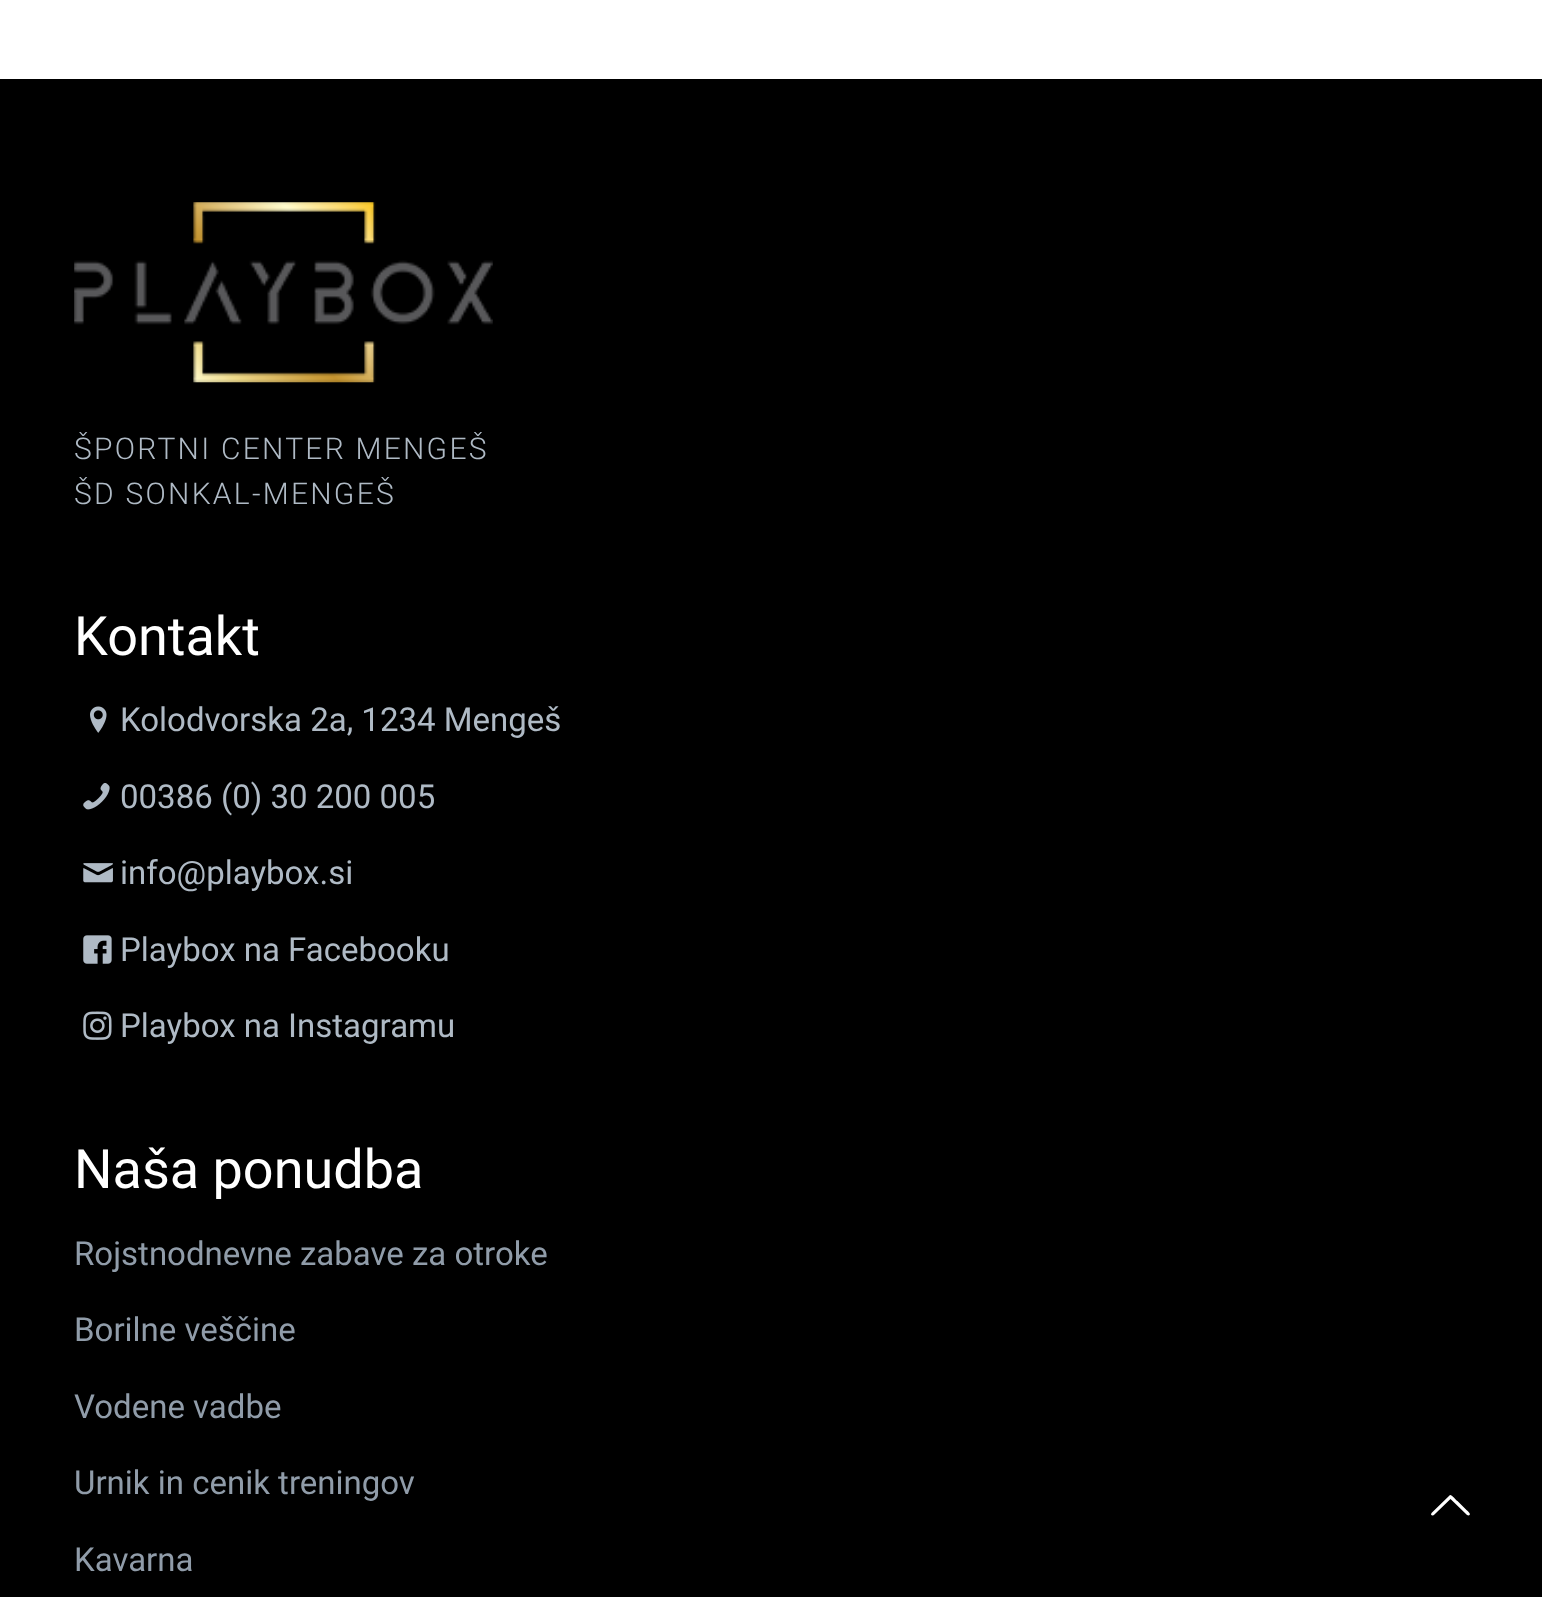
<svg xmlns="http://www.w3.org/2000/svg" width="1542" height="1597">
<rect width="100%" height="100%" fill="#fff"/>
<rect y="79" width="1542" height="1518" fill="#000"/>
<image x="74" y="202" width="419" height="181" href="media/1.png"/>
<text x="74" y="459" style="font-family:Roboto;font-size:30px;font-weight:300;letter-spacing:2.25px;fill:#afbac5">ŠPORTNI CENTER MENGEŠ</text>
<text x="74" y="504" style="font-family:Roboto;font-size:30px;font-weight:300;letter-spacing:2.25px;fill:#afbac5">ŠD SONKAL-MENGEŠ</text>
<text x="74" y="655" style="font-family:Roboto;font-size:54px;fill:#fff">Kontakt</text>
<image x="90" y="706" width="17" height="27" href="media/2.png"/>
<text x="120" y="731" style="font-family:Roboto;font-size:33px;fill:#afbac5">Kolodvorska 2a, 1234 Mengeš</text>
<image x="83" y="783" width="27" height="27" href="media/3.png"/>
<text x="120" y="808" style="font-family:Roboto;font-size:33px;fill:#afbac5">00386 (0) 30 200 005</text>
<image x="83" y="863" width="30" height="20" href="media/4.png"/>
<text x="120" y="884" style="font-family:Roboto;font-size:33px;fill:#afbac5">info@playbox.si</text>
<image x="83" y="935" width="29" height="29" href="media/5.png"/>
<text x="120" y="961" style="font-family:Roboto;font-size:33px;fill:#afbac5">Playbox na Facebooku</text>
<image x="83" y="1011" width="29" height="29" href="media/6.png"/>
<text x="120" y="1037" style="font-family:Roboto;font-size:33px;fill:#afbac5">Playbox na Instagramu</text>
<text x="74" y="1188" style="font-family:Roboto;font-size:54px;fill:#fff">Naša ponudba</text>
<text x="74" y="1265" style="font-family:Roboto;font-size:33px;fill:#909ca9">Rojstnodnevne zabave za otroke</text>
<text x="74" y="1341" style="font-family:Roboto;font-size:33px;fill:#909ca9">Borilne veščine</text>
<text x="74" y="1418" style="font-family:Roboto;font-size:33px;fill:#909ca9">Vodene vadbe</text>
<text x="74" y="1494" style="font-family:Roboto;font-size:33px;fill:#909ca9">Urnik in cenik treningov</text>
<text x="74" y="1571" style="font-family:Roboto;font-size:33px;fill:#909ca9">Kavarna</text>
<path d="M1467 1515l-16.5-16l-14 13.5c-1 1-4 5-5.5 2l.5-1.5l18.5-18c1.5-.5 6.5 5.5 7.5 6l9 9c0 0 6 4.5 2 5.5z" fill="#fff"/>
</svg>
